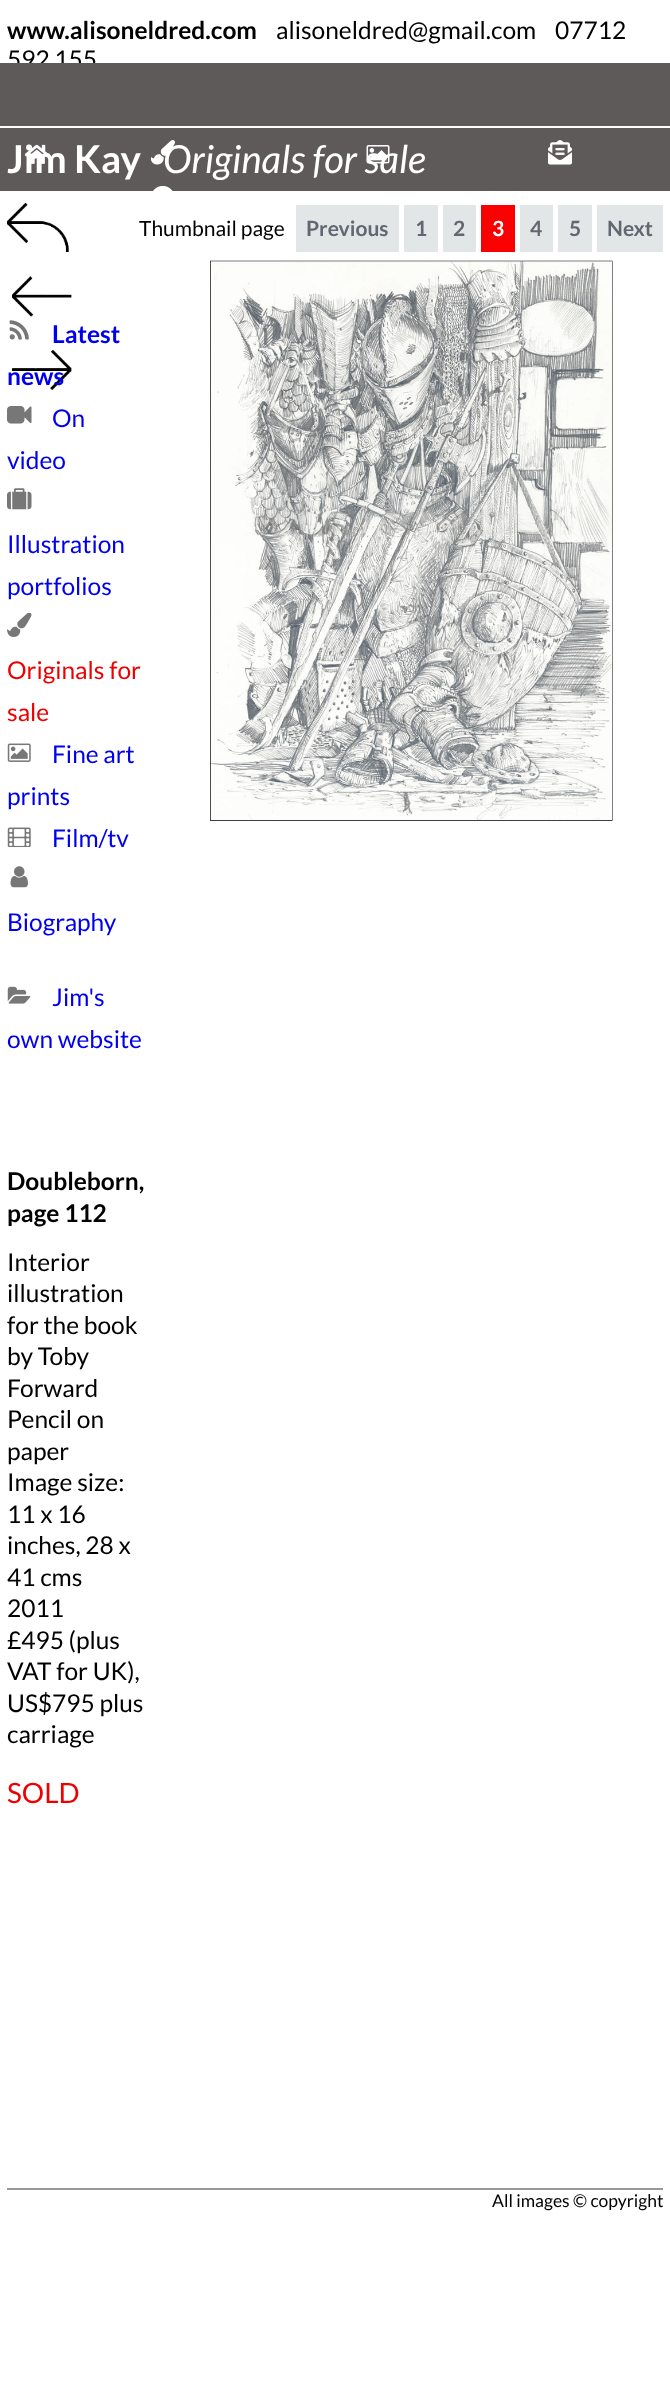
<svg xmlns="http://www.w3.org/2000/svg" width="670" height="2405">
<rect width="100%" height="100%" fill="#fff"/>
<text x="7" y="39" style="font-family:Lato;font-size:24.5px;font-weight:bold;fill:#000">www.alisoneldred.com</text>
<text x="276" y="39" style="font-family:Lato;font-size:24.5px;fill:#000" xml:space="preserve">alisoneldred@gmail.com    07712</text>
<text x="7" y="68" style="font-family:Lato;font-size:24.5px;fill:#000">592 155</text>
<rect y="63" width="670" height="63" fill="#5f5a5a"/>
<rect y="128" width="670" height="63" fill="#5f5a5a"/>
<text x="7" y="173" style="font-family:Lato;font-size:38.5px;font-weight:bold;fill:#fff">Jim Kay</text>
<image x="25" y="144" width="24" height="20" href="media/1.png"/>
<text x="163" y="173" style="font-family:Lato;font-size:38.5px;font-style:italic;fill:#fff">Originals for sale</text>
<image x="151" y="140" width="24" height="25" href="media/2.png"/>
<image x="366" y="145" width="24" height="19" href="media/3.png"/>
<image x="548" y="140" width="24" height="25" href="media/4.png"/>
<image x="153" y="186" width="20" height="5" href="media/5.png"/>
<image x="7" y="203" width="62" height="49" href="media/6.png"/>
<image x="12" y="276" width="60" height="41" href="media/7.png"/>
<image x="12" y="350" width="60" height="40" href="media/8.png"/>
<text x="139" y="236" style="font-family:Lato;font-size:21px;fill:#000">Thumbnail page</text>
<rect x="296" y="205" width="103" height="47" fill="#e2e6e6"/>
<text x="306" y="236" style="font-family:Lato;font-size:21px;font-weight:bold;fill:#616872">Previous</text>
<rect x="404" y="205" width="34" height="47" fill="#e2e6e6"/>
<text x="415" y="236" style="font-family:Lato;font-size:21px;font-weight:bold;fill:#616872">1</text>
<rect x="443" y="205" width="33" height="47" fill="#e2e6e6"/>
<text x="453" y="236" style="font-family:Lato;font-size:21px;font-weight:bold;fill:#616872">2</text>
<rect x="481" y="205" width="34" height="47" fill="#fb0000"/>
<text x="492" y="236" style="font-family:Lato;font-size:21px;font-weight:bold;fill:#fff">3</text>
<rect x="520" y="205" width="33" height="47" fill="#e2e6e6"/>
<text x="530" y="236" style="font-family:Lato;font-size:21px;font-weight:bold;fill:#616872">4</text>
<rect x="558" y="205" width="34" height="47" fill="#e2e6e6"/>
<text x="569" y="236" style="font-family:Lato;font-size:21px;font-weight:bold;fill:#616872">5</text>
<rect x="597" y="205" width="66" height="47" fill="#e2e6e6"/>
<text x="607" y="236" style="font-family:Lato;font-size:21px;font-weight:bold;fill:#616872">Next</text>
<image x="9" y="320" width="20" height="20" href="media/9.png"/>
<text x="52" y="343" style="font-family:Lato;font-size:24.5px;font-weight:bold;fill:#00e">Latest</text>
<text x="7" y="385" style="font-family:Lato;font-size:24.5px;font-weight:bold;fill:#00e">news</text>
<image x="7" y="406" width="25" height="18" href="media/10.png"/>
<text x="52" y="427" style="font-family:Lato;font-size:24.5px;fill:#00e">On</text>
<text x="7" y="469" style="font-family:Lato;font-size:24.5px;fill:#00e">video</text>
<image x="7" y="488" width="25" height="22" href="media/11.png"/>
<text x="7" y="553" style="font-family:Lato;font-size:24.5px;fill:#00e">Illustration</text>
<text x="7" y="595" style="font-family:Lato;font-size:24.5px;fill:#00e">portfolios</text>
<image x="7" y="613" width="25" height="24" href="media/12.png"/>
<text x="7" y="679" style="font-family:Lato;font-size:24.5px;fill:#e00">Originals for</text>
<text x="7" y="721" style="font-family:Lato;font-size:24.5px;fill:#e00">sale</text>
<image x="7" y="743" width="24" height="19" href="media/13.png"/>
<text x="52" y="763" style="font-family:Lato;font-size:24.5px;fill:#00e">Fine art</text>
<text x="7" y="805" style="font-family:Lato;font-size:24.5px;fill:#00e">prints</text>
<image x="7" y="827" width="24" height="20" href="media/14.png"/>
<text x="52" y="847" style="font-family:Lato;font-size:24.5px;fill:#00e">Film/tv</text>
<image x="10" y="866" width="18" height="22" href="media/15.png"/>
<text x="7" y="931" style="font-family:Lato;font-size:24.5px;fill:#00e">Biography</text>
<image x="7" y="986" width="24" height="18" href="media/16.png"/>
<text x="52" y="1006" style="font-family:Lato;font-size:24.5px;fill:#00e">Jim's</text>
<text x="7" y="1048" style="font-family:Lato;font-size:24.5px;fill:#00e">own website</text>
<text x="7" y="1190" style="font-family:Lato;font-size:24.5px;font-weight:bold;fill:#000">Doubleborn,</text>
<text x="7" y="1222" style="font-family:Lato;font-size:24.5px;font-weight:bold;fill:#000">page 112</text>
<text x="7" y="1271" style="font-family:Lato;font-size:24.5px;fill:#000">Interior</text>
<text x="7" y="1302" style="font-family:Lato;font-size:24.5px;fill:#000">illustration</text>
<text x="7" y="1334" style="font-family:Lato;font-size:24.5px;fill:#000">for the book</text>
<text x="7" y="1365" style="font-family:Lato;font-size:24.5px;fill:#000">by Toby</text>
<text x="7" y="1397" style="font-family:Lato;font-size:24.5px;fill:#000">Forward</text>
<text x="7" y="1428" style="font-family:Lato;font-size:24.5px;fill:#000">Pencil on</text>
<text x="7" y="1460" style="font-family:Lato;font-size:24.5px;fill:#000">paper</text>
<text x="7" y="1491" style="font-family:Lato;font-size:24.5px;fill:#000">Image size:</text>
<text x="7" y="1523" style="font-family:Lato;font-size:24.5px;fill:#000">11 x 16</text>
<text x="7" y="1554" style="font-family:Lato;font-size:24.5px;fill:#000">inches, 28 x</text>
<text x="7" y="1586" style="font-family:Lato;font-size:24.5px;fill:#000">41 cms</text>
<text x="7" y="1617" style="font-family:Lato;font-size:24.5px;fill:#000">2011</text>
<text x="7" y="1649" style="font-family:Lato;font-size:24.5px;fill:#000">£495 (plus</text>
<text x="7" y="1680" style="font-family:Lato;font-size:24.5px;fill:#000">VAT for UK),</text>
<text x="7" y="1712" style="font-family:Lato;font-size:24.5px;fill:#000">US$795 plus</text>
<text x="7" y="1743" style="font-family:Lato;font-size:24.5px;fill:#000">carriage</text>
<text x="7" y="1803" style="font-family:Lato;font-size:28px;fill:#e00">SOLD</text>
<image x="210" y="260" width="403" height="561" href="media/17.png"/>
<rect x="7" y="2188" width="656" height="2" fill="#999"/>
<text x="492" y="2207" style="font-family:Lato;font-size:17.5px;fill:#000">All images © copyright</text>
</svg>
